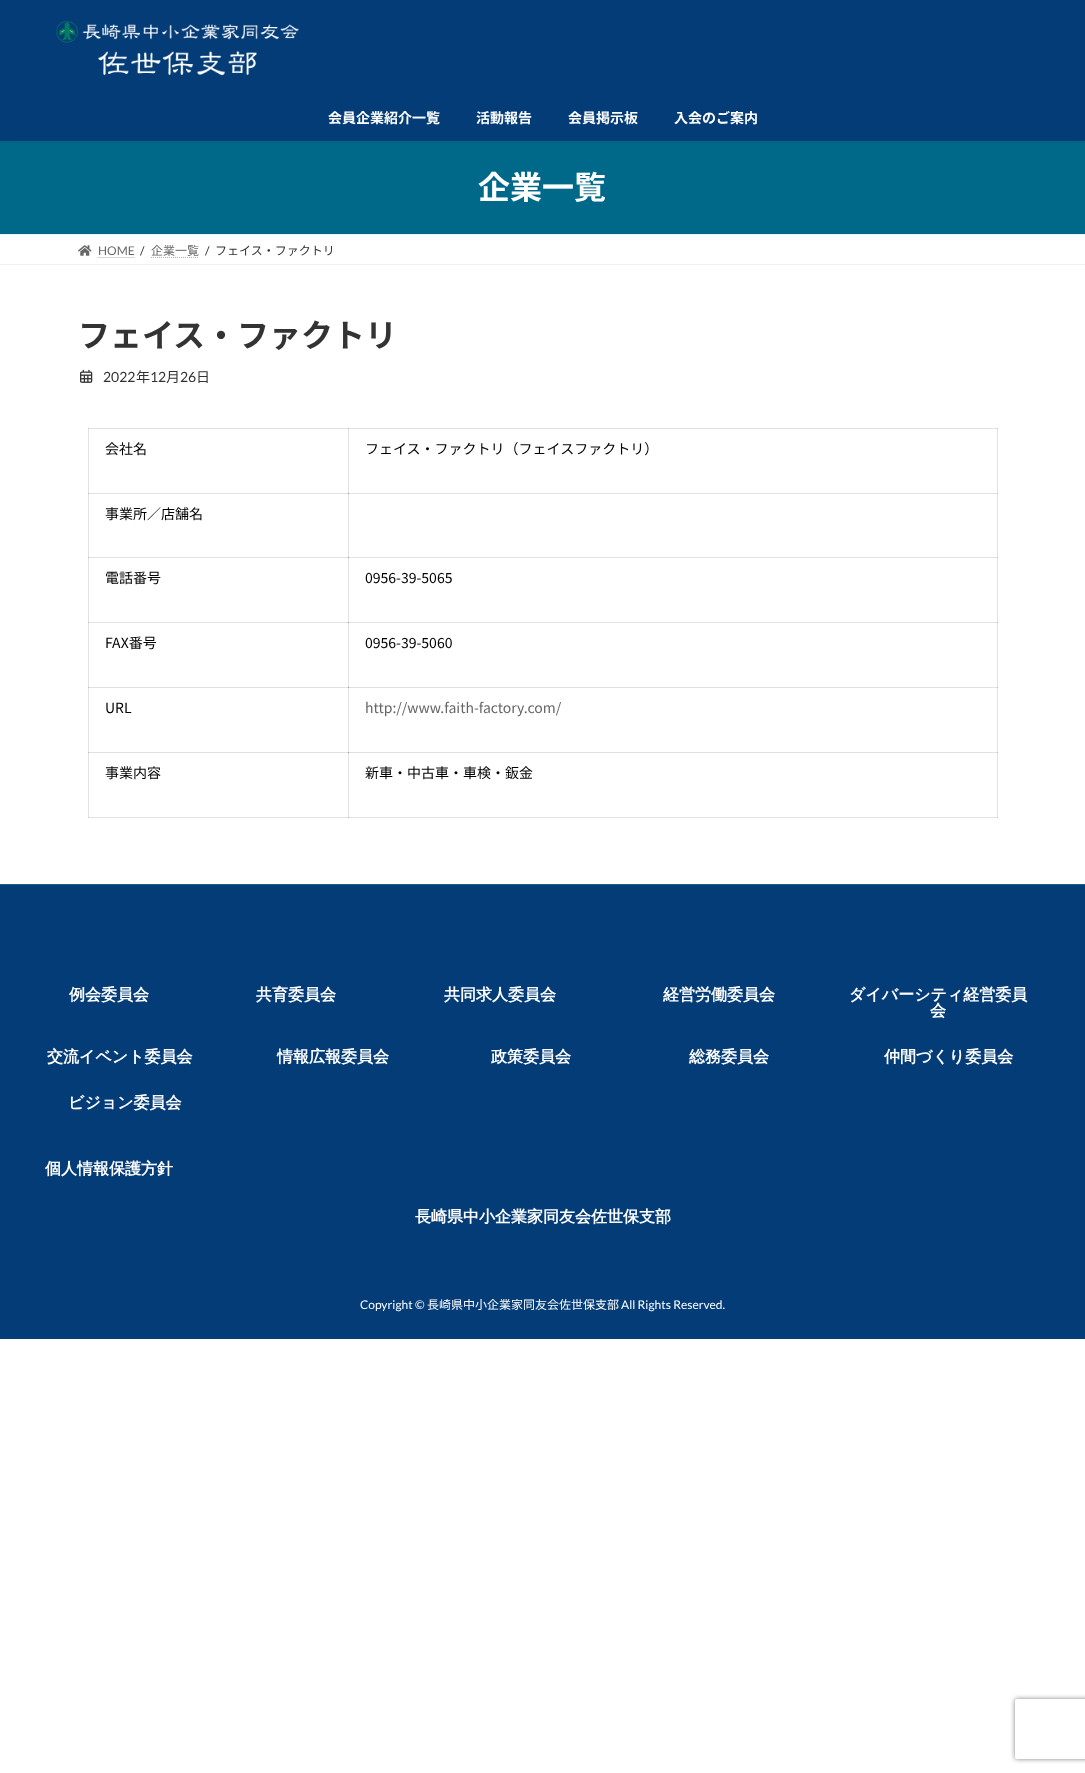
<svg xmlns="http://www.w3.org/2000/svg" width="1085" height="1773">
<defs>
<clipPath id="clip1"><path d="M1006 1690h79v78h-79zm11 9h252c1 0 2 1 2 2v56c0 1-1 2-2 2h-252c-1 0-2-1-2-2v-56c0-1 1-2 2-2z" clip-rule="evenodd"/></clipPath>
</defs>
<rect width="100%" height="100%" fill="#fff"/>
<rect x="348" y="428" width="1" height="66" fill="#e2e2e2"/>
<rect x="88" y="493" width="261" height="1" fill="#e2e2e2"/>
<rect x="348" y="493" width="1" height="65" fill="#e2e2e2"/>
<rect x="348" y="493" width="650" height="1" fill="#e2e2e2"/>
<rect x="348" y="493" width="1" height="1" fill="#9b9b9b"/>
<rect x="88" y="557" width="261" height="1" fill="#e2e2e2"/>
<rect x="348" y="557" width="1" height="66" fill="#e2e2e2"/>
<rect x="348" y="557" width="650" height="1" fill="#e2e2e2"/>
<rect x="348" y="557" width="1" height="1" fill="#9b9b9b"/>
<rect x="88" y="622" width="261" height="1" fill="#e2e2e2"/>
<rect x="348" y="622" width="1" height="66" fill="#e2e2e2"/>
<rect x="348" y="622" width="650" height="1" fill="#e2e2e2"/>
<rect x="348" y="622" width="1" height="1" fill="#9b9b9b"/>
<rect x="88" y="687" width="261" height="1" fill="#e2e2e2"/>
<rect x="348" y="687" width="1" height="66" fill="#e2e2e2"/>
<rect x="348" y="687" width="650" height="1" fill="#e2e2e2"/>
<rect x="348" y="687" width="1" height="1" fill="#9b9b9b"/>
<rect x="88" y="752" width="261" height="1" fill="#e2e2e2"/>
<rect x="348" y="752" width="1" height="66" fill="#e2e2e2"/>
<rect x="348" y="752" width="650" height="1" fill="#e2e2e2"/>
<rect x="348" y="752" width="1" height="1" fill="#9b9b9b"/>
<rect x="88" y="428" width="1" height="390" fill="#e2e2e2"/>
<rect x="88" y="493" width="1" height="1" fill="#bbb"/>
<rect x="88" y="557" width="1" height="1" fill="#bbb"/>
<rect x="88" y="622" width="1" height="1" fill="#bbb"/>
<rect x="88" y="687" width="1" height="1" fill="#bbb"/>
<rect x="88" y="752" width="1" height="1" fill="#bbb"/>
<rect x="88" y="817" width="910" height="1" fill="#e2e2e2"/>
<rect x="348" y="817" width="1" height="1" fill="#bbb"/>
<rect x="88" y="817" width="1" height="1" fill="#c7c7c7"/>
<rect x="997" y="428" width="1" height="390" fill="#e2e2e2"/>
<rect x="997" y="493" width="1" height="1" fill="#bbb"/>
<rect x="997" y="557" width="1" height="1" fill="#bbb"/>
<rect x="997" y="622" width="1" height="1" fill="#bbb"/>
<rect x="997" y="687" width="1" height="1" fill="#bbb"/>
<rect x="997" y="752" width="1" height="1" fill="#bbb"/>
<rect x="997" y="817" width="1" height="1" fill="#c7c7c7"/>
<rect y="141" width="1085" height="93" fill="#006888"/>
<rect y="1" width="1085" height="141" fill="#0000000d" filter="blur(1.5px)"/>
<rect width="1085" height="141" fill="#043c78"/>
<image x="56" y="20" width="243" height="56" href="media/1.png"/>
<text x="328" y="123" style="font-family:Noto Sans JP;font-size:14px;font-weight:bold;fill:#fff">会員企業紹介一覧</text>
<text x="476" y="123" style="font-family:Noto Sans JP;font-size:14px;font-weight:bold;fill:#fff">活動報告</text>
<text x="568" y="123" style="font-family:Noto Sans JP;font-size:14px;font-weight:bold;fill:#fff">会員掲示板</text>
<text x="674" y="123" style="font-family:Noto Sans JP;font-size:14px;font-weight:bold;fill:#fff">入会のご案内</text>
<text x="478" y="199" style="font-family:Noto Sans JP;font-size:32px;font-weight:bold;fill:#fff">企業一覧</text>
<rect y="234" width="1085" height="1" fill="#f0f0f0"/>
<rect y="264" width="1085" height="1" fill="#f0f0f0"/>
<image x="78" y="245" width="14" height="11" href="media/2.png"/>
<text x="98" y="255" style="font-family:Lato;font-size:12px;fill:#666">HOME</text>
<path d="M97.5 257.5h37" fill="none" stroke="#b3b3b3" stroke-dasharray="1 1"/>
<text x="140" y="255" style="font-family:Lato;font-size:12px;fill:#333">/</text>
<text x="151" y="255" style="font-family:Noto Sans JP;font-size:12px;fill:#666">企業一覧</text>
<path d="M151 257.5h48" fill="none" stroke="#b3b3b3" stroke-dasharray="1 1"/>
<text x="205" y="255" style="font-family:Lato;font-size:12px;fill:#333">/</text>
<text x="215" y="255" style="font-family:Noto Sans JP;font-size:12px;fill:#333">フェイス・ファクトリ</text>
<text x="78" y="347" style="font-family:Noto Sans JP;font-size:32px;font-weight:bold;fill:#333">フェイス・ファクトリ</text>
<image x="80" y="369" width="13" height="14" href="media/3.png"/>
<text x="103" y="382" style="font-family:Lato;font-size:14px;fill:#333">2022</text>
<text x="136" y="382" style="font-family:Noto Sans JP;font-size:14px;fill:#333">年</text>
<text x="150" y="382" style="font-family:Lato;font-size:14px;fill:#333">12</text>
<text x="166" y="382" style="font-family:Noto Sans JP;font-size:14px;fill:#333">月</text>
<text x="180" y="382" style="font-family:Lato;font-size:14px;fill:#333">26</text>
<text x="196" y="382" style="font-family:Noto Sans JP;font-size:14px;fill:#333">日</text>
<rect x="88" y="428" width="910" height="1" fill="#e2e2e2"/>
<rect x="348" y="428" width="1" height="1" fill="#bbb"/>
<rect x="88" y="428" width="1" height="1" fill="#c7c7c7"/>
<rect x="997" y="428" width="1" height="1" fill="#c7c7c7"/>
<text x="105" y="454" style="font-family:Noto Sans JP;font-size:14px;fill:#000">会社名</text>
<text x="365" y="454" style="font-family:Noto Sans JP;font-size:14px;fill:#000">フェイス・ファクトリ（フェイスファクトリ）</text>
<text x="105" y="519" style="font-family:Noto Sans JP;font-size:14px;fill:#000">事業所／店舗名</text>
<text x="105" y="583" style="font-family:Noto Sans JP;font-size:14px;fill:#000">電話番号</text>
<text x="365" y="583" style="font-family:Noto Sans JP;font-size:14px;fill:#000">0956-39-5065</text>
<text x="105" y="648" style="font-family:Noto Sans JP;font-size:14px;fill:#000">FAX番号</text>
<text x="365" y="648" style="font-family:Noto Sans JP;font-size:14px;fill:#000">0956-39-5060</text>
<text x="105" y="713" style="font-family:Noto Sans JP;font-size:14px;fill:#000">URL</text>
<text x="365" y="713" style="font-family:Noto Sans JP;font-size:14px;fill:#666">http://www.faith-factory.com/</text>
<text x="105" y="778" style="font-family:Noto Sans JP;font-size:14px;fill:#000">事業内容</text>
<text x="365" y="778" style="font-family:Noto Sans JP;font-size:14px;fill:#000">新車・中古車・車検・鈑金</text>
<rect y="885" width="1085" height="454" fill="#043c78"/>
<rect y="884" width="1085" height="1" fill="#006888"/>
<text x="69" y="1000" style="font-family:WenQuanYi Zen Hei;font-size:16px;font-weight:bold;fill:#fff">例会委員会</text>
<text x="256" y="1000" style="font-family:WenQuanYi Zen Hei;font-size:16px;font-weight:bold;fill:#fff">共育委員会</text>
<text x="444" y="1000" style="font-family:WenQuanYi Zen Hei;font-size:16px;font-weight:bold;fill:#fff">共同求人委員会</text>
<text x="663" y="1000" style="font-family:WenQuanYi Zen Hei;font-size:16px;font-weight:bold;fill:#fff">経営労働委員会</text>
<text x="849" y="1000" style="font-family:WenQuanYi Zen Hei;font-size:16px;font-weight:bold;fill:#fff">ダイバーシティ経営委員</text>
<text x="930" y="1016" style="font-family:WenQuanYi Zen Hei;font-size:16px;font-weight:bold;fill:#fff">会</text>
<text x="47" y="1062" style="font-family:WenQuanYi Zen Hei;font-size:16px;font-weight:bold;fill:#fff">交流イベント委員会</text>
<text x="277" y="1062" style="font-family:WenQuanYi Zen Hei;font-size:16px;font-weight:bold;fill:#fff">情報広報委員会</text>
<text x="491" y="1062" style="font-family:WenQuanYi Zen Hei;font-size:16px;font-weight:bold;fill:#fff">政策委員会</text>
<text x="689" y="1062" style="font-family:WenQuanYi Zen Hei;font-size:16px;font-weight:bold;fill:#fff">総務委員会</text>
<text x="884" y="1062" style="font-family:WenQuanYi Zen Hei;font-size:16px;font-weight:bold;fill:#fff">仲間づくり委員会</text>
<text x="68" y="1108" style="font-family:WenQuanYi Zen Hei;font-size:16px;font-weight:bold;fill:#fff">ビジョン委員会</text>
<text x="45" y="1174" style="font-family:WenQuanYi Zen Hei;font-size:16px;font-weight:bold;fill:#fff">個人情報保護方針</text>
<text x="415" y="1222" style="font-family:WenQuanYi Zen Hei;font-size:16px;font-weight:bold;fill:#fff">長崎県中小企業家同友会佐世保支部</text>
<text x="360" y="1309" style="font-family:Lato;font-size:12px;fill:#fff">Copyright ©</text>
<text x="427" y="1309" style="font-family:Noto Sans JP;font-size:12px;fill:#fff">長崎県中小企業家同友会佐世保支部</text>
<text x="621" y="1309" style="font-family:Lato;font-size:12px;fill:#fff">All Rights Reserved.</text>
<g clip-path="url(#clip1)">
<rect x="1015" y="1699" width="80" height="60" rx="2" fill="#808080" filter="blur(2.5px)"/>
</g>
</svg>
